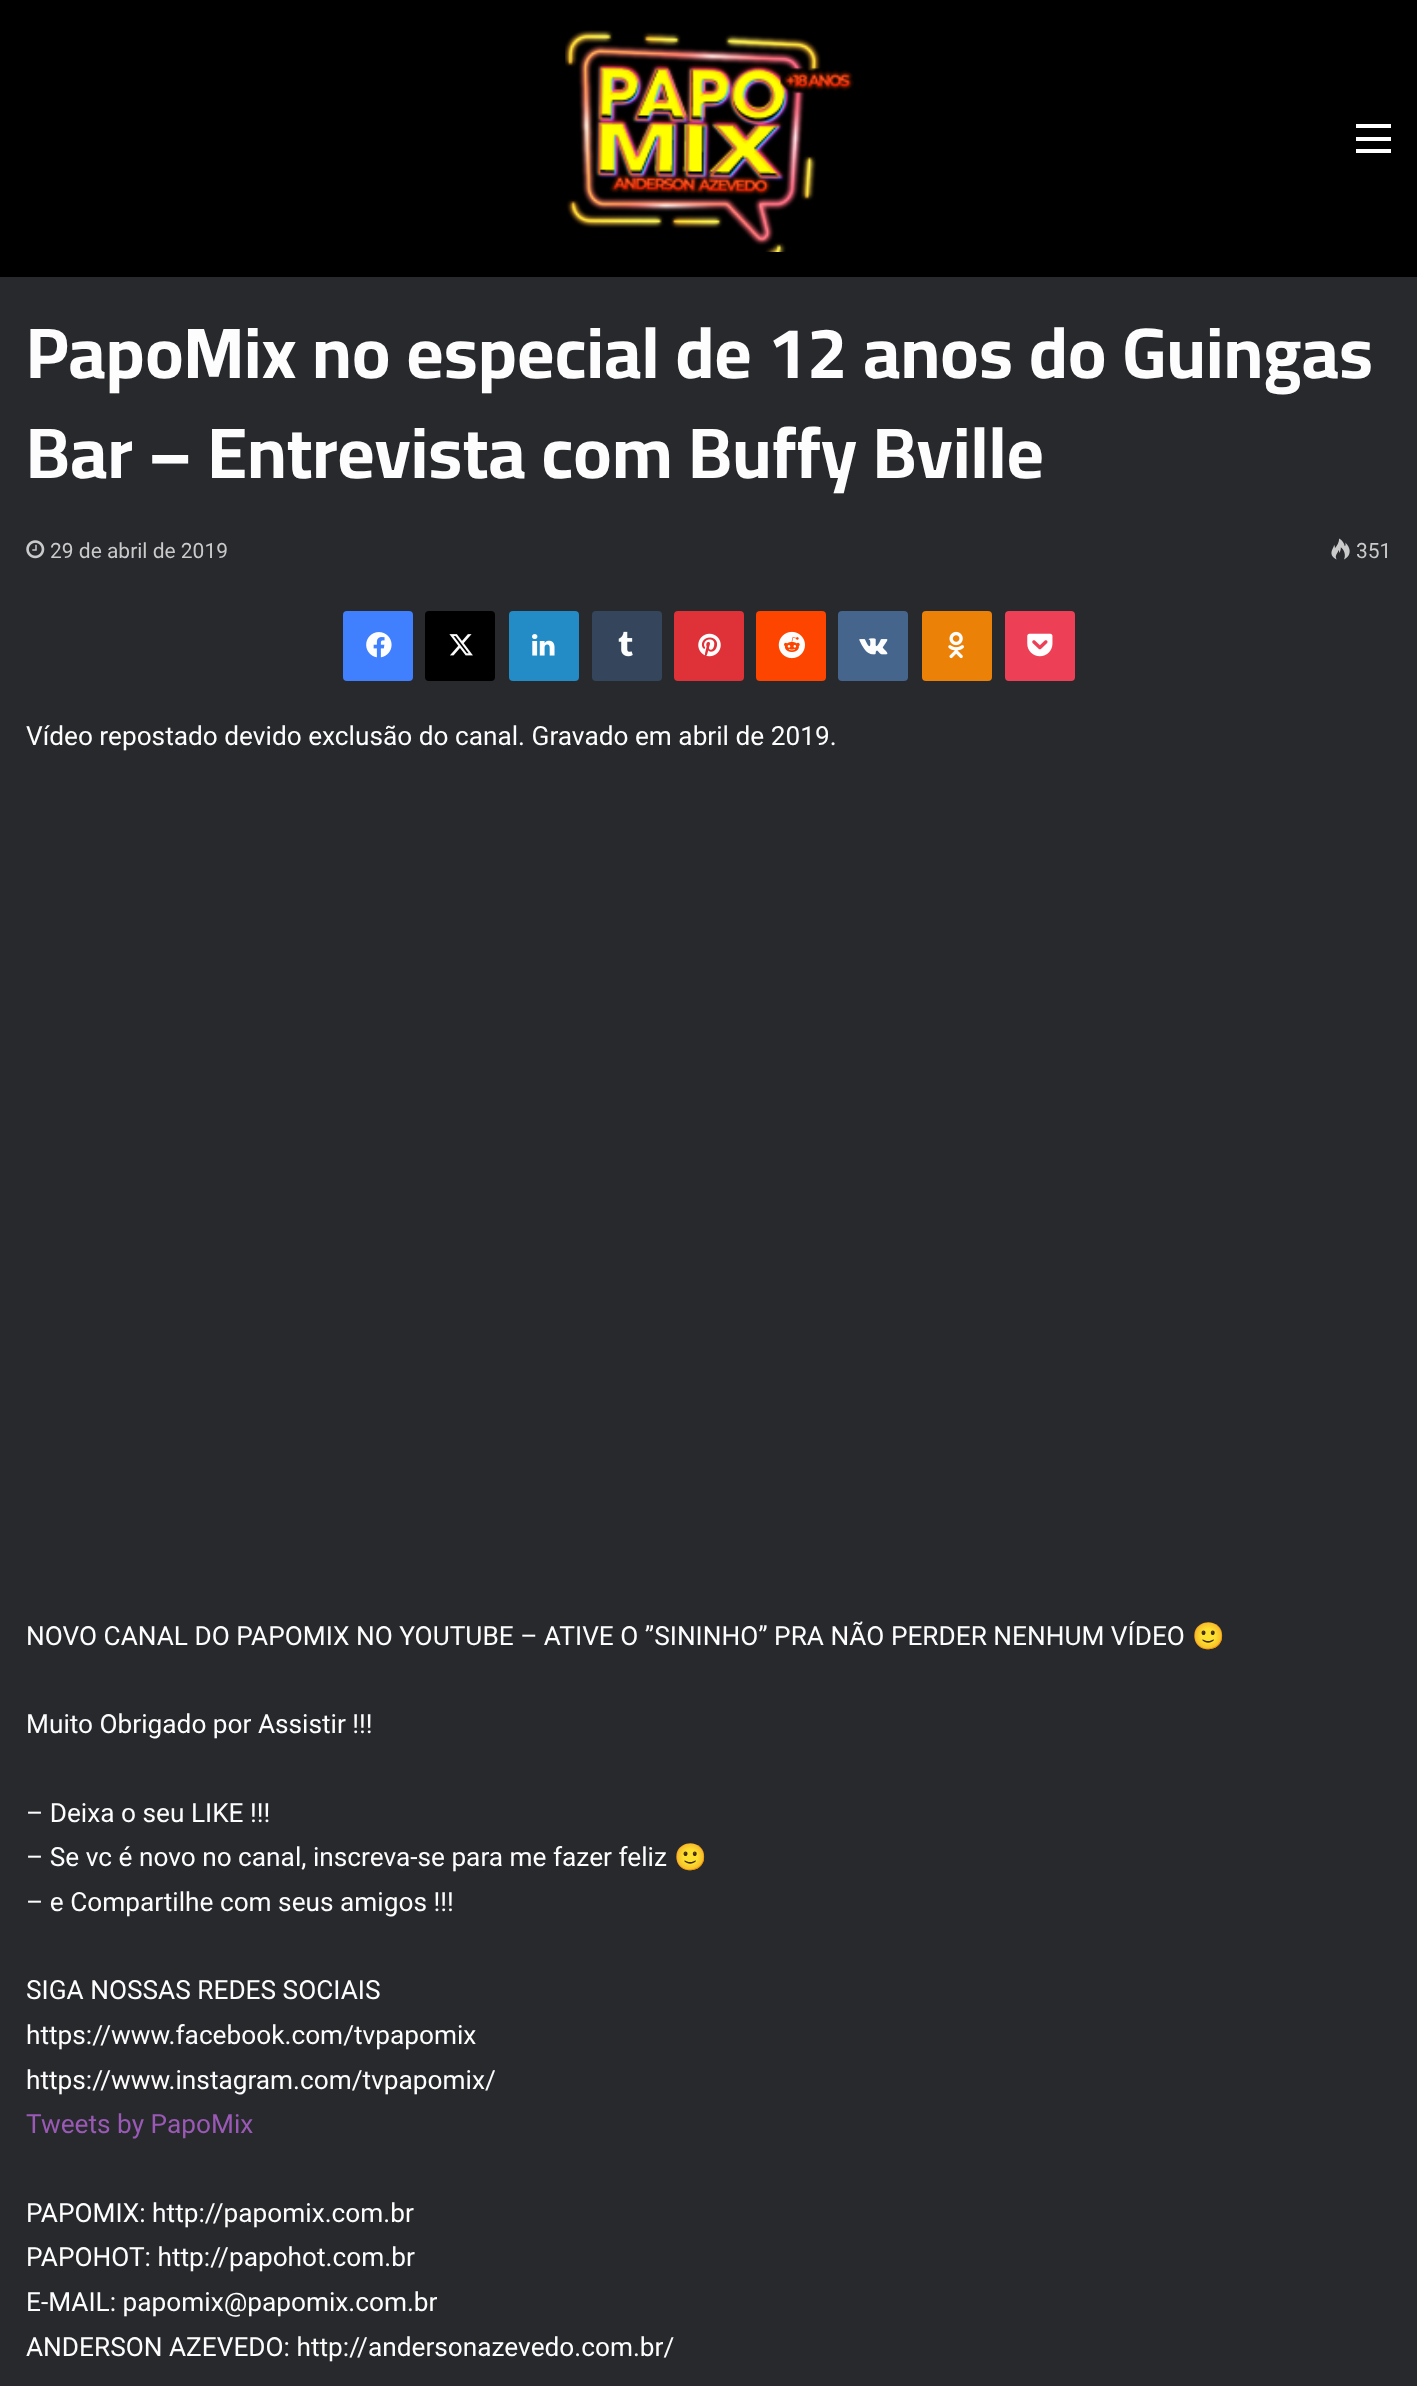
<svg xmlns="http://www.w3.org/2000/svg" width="1417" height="2386">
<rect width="100%" height="100%" fill="#27292d"/>
<rect width="1417" height="277" fill="#000"/>
<image x="565" y="30" width="289" height="222" href="media/1.png"/>
<rect x="1356" y="137" width="35" height="4" fill="#fff"/>
<rect x="1356" y="124" width="35" height="4" fill="#fff"/>
<rect x="1356" y="149" width="35" height="4" fill="#fff"/>
<text x="26" y="378" style="font-family:Cairo;font-size:71.75px;font-weight:bold;fill:#fdfdfd">PapoMix no especial de 12 anos do Guingas</text>
<text x="26" y="478" style="font-family:Cairo;font-size:71.75px;font-weight:bold;fill:#fdfdfd">Bar – Entrevista com Buffy Bville</text>
<image x="26" y="540" width="19" height="19" href="media/2.png"/>
<text x="50" y="558" style="font-family:Roboto;font-size:21px;fill:#cacaca">29 de abril de 2019</text>
<image x="1331" y="538" width="19" height="22" href="media/3.png"/>
<text x="1356" y="558" style="font-family:Roboto;font-size:21px;fill:#cacaca">351</text>
<rect x="343" y="611" width="70" height="70" rx="4" fill="#407ffd"/>
<image x="366" y="632" width="26" height="26" href="media/4.png"/>
<rect x="425" y="611" width="70" height="70" rx="4" fill="#000"/>
<image x="449" y="634" width="24" height="22" href="media/5.png"/>
<rect x="509" y="611" width="70" height="70" rx="4" fill="#238bc6"/>
<image x="532" y="634" width="23" height="22" href="media/6.png"/>
<rect x="592" y="611" width="70" height="70" rx="4" fill="#35465c"/>
<image x="618" y="631" width="15" height="26" href="media/7.png"/>
<rect x="674" y="611" width="70" height="70" rx="4" fill="#df3138"/>
<image x="698" y="633" width="23" height="24" href="media/8.png"/>
<rect x="756" y="611" width="70" height="70" rx="4" fill="#fd4500"/>
<image x="778" y="631" width="27" height="28" href="media/9.png"/>
<rect x="838" y="611" width="70" height="70" rx="4" fill="#45658d"/>
<image x="859" y="638" width="29" height="17" href="media/10.png"/>
<rect x="922" y="611" width="70" height="70" rx="4" fill="#ec8108"/>
<image x="948" y="631" width="16" height="28" href="media/11.png"/>
<rect x="1005" y="611" width="70" height="70" rx="4" fill="#ed4056"/>
<image x="1027" y="633" width="26" height="24" href="media/12.png"/>
<text x="26" y="745" style="font-family:Roboto;font-size:26.25px;fill:#fdfdfd">Vídeo repostado devido exclusão do canal. Gravado em abril de 2019.</text>
<text x="26" y="1645" style="font-family:Roboto;font-size:26.25px;fill:#fdfdfd">NOVO CANAL DO PAPOMIX NO YOUTUBE – ATIVE O ”SININHO” PRA NÃO PERDER NENHUM VÍDEO</text>
<text x="1192" y="1645" style="font-family:Noto Color Emoji;font-size:26.25px;fill:#fdfdfd">🙂</text>
<text x="26" y="1733" style="font-family:Roboto;font-size:26.25px;fill:#fdfdfd">Muito Obrigado por Assistir !!!</text>
<text x="26" y="1822" style="font-family:Roboto;font-size:26.25px;fill:#fdfdfd">– Deixa o seu LIKE !!!</text>
<text x="26" y="1866" style="font-family:Roboto;font-size:26.25px;fill:#fdfdfd">– Se vc é novo no canal, inscreva-se para me fazer feliz</text>
<text x="674" y="1866" style="font-family:Noto Color Emoji;font-size:26.25px;fill:#fdfdfd">🙂</text>
<text x="26" y="1911" style="font-family:Roboto;font-size:26.25px;fill:#fdfdfd">– e Compartilhe com seus amigos !!!</text>
<text x="26" y="1999" style="font-family:Roboto;font-size:26.25px;fill:#fdfdfd">SIGA NOSSAS REDES SOCIAIS</text>
<text x="26" y="2044" style="font-family:Roboto;font-size:26.25px;fill:#fdfdfd">https://www.facebook.com/tvpapomix</text>
<text x="26" y="2089" style="font-family:Roboto;font-size:26.25px;fill:#fdfdfd">https://www.instagram.com/tvpapomix/</text>
<text x="26" y="2133" style="font-family:Roboto;font-size:26.25px;fill:#9a59b5">Tweets by PapoMix</text>
<text x="26" y="2222" style="font-family:Roboto;font-size:26.25px;fill:#fdfdfd">PAPOMIX: http://papomix.com.br</text>
<text x="26" y="2266" style="font-family:Roboto;font-size:26.25px;fill:#fdfdfd">PAPOHOT: http://papohot.com.br</text>
<text x="26" y="2311" style="font-family:Roboto;font-size:26.25px;fill:#fdfdfd">E-MAIL: papomix@papomix.com.br</text>
<text x="26" y="2356" style="font-family:Roboto;font-size:26.25px;fill:#fdfdfd">ANDERSON AZEVEDO: http://andersonazevedo.com.br/</text>
</svg>
